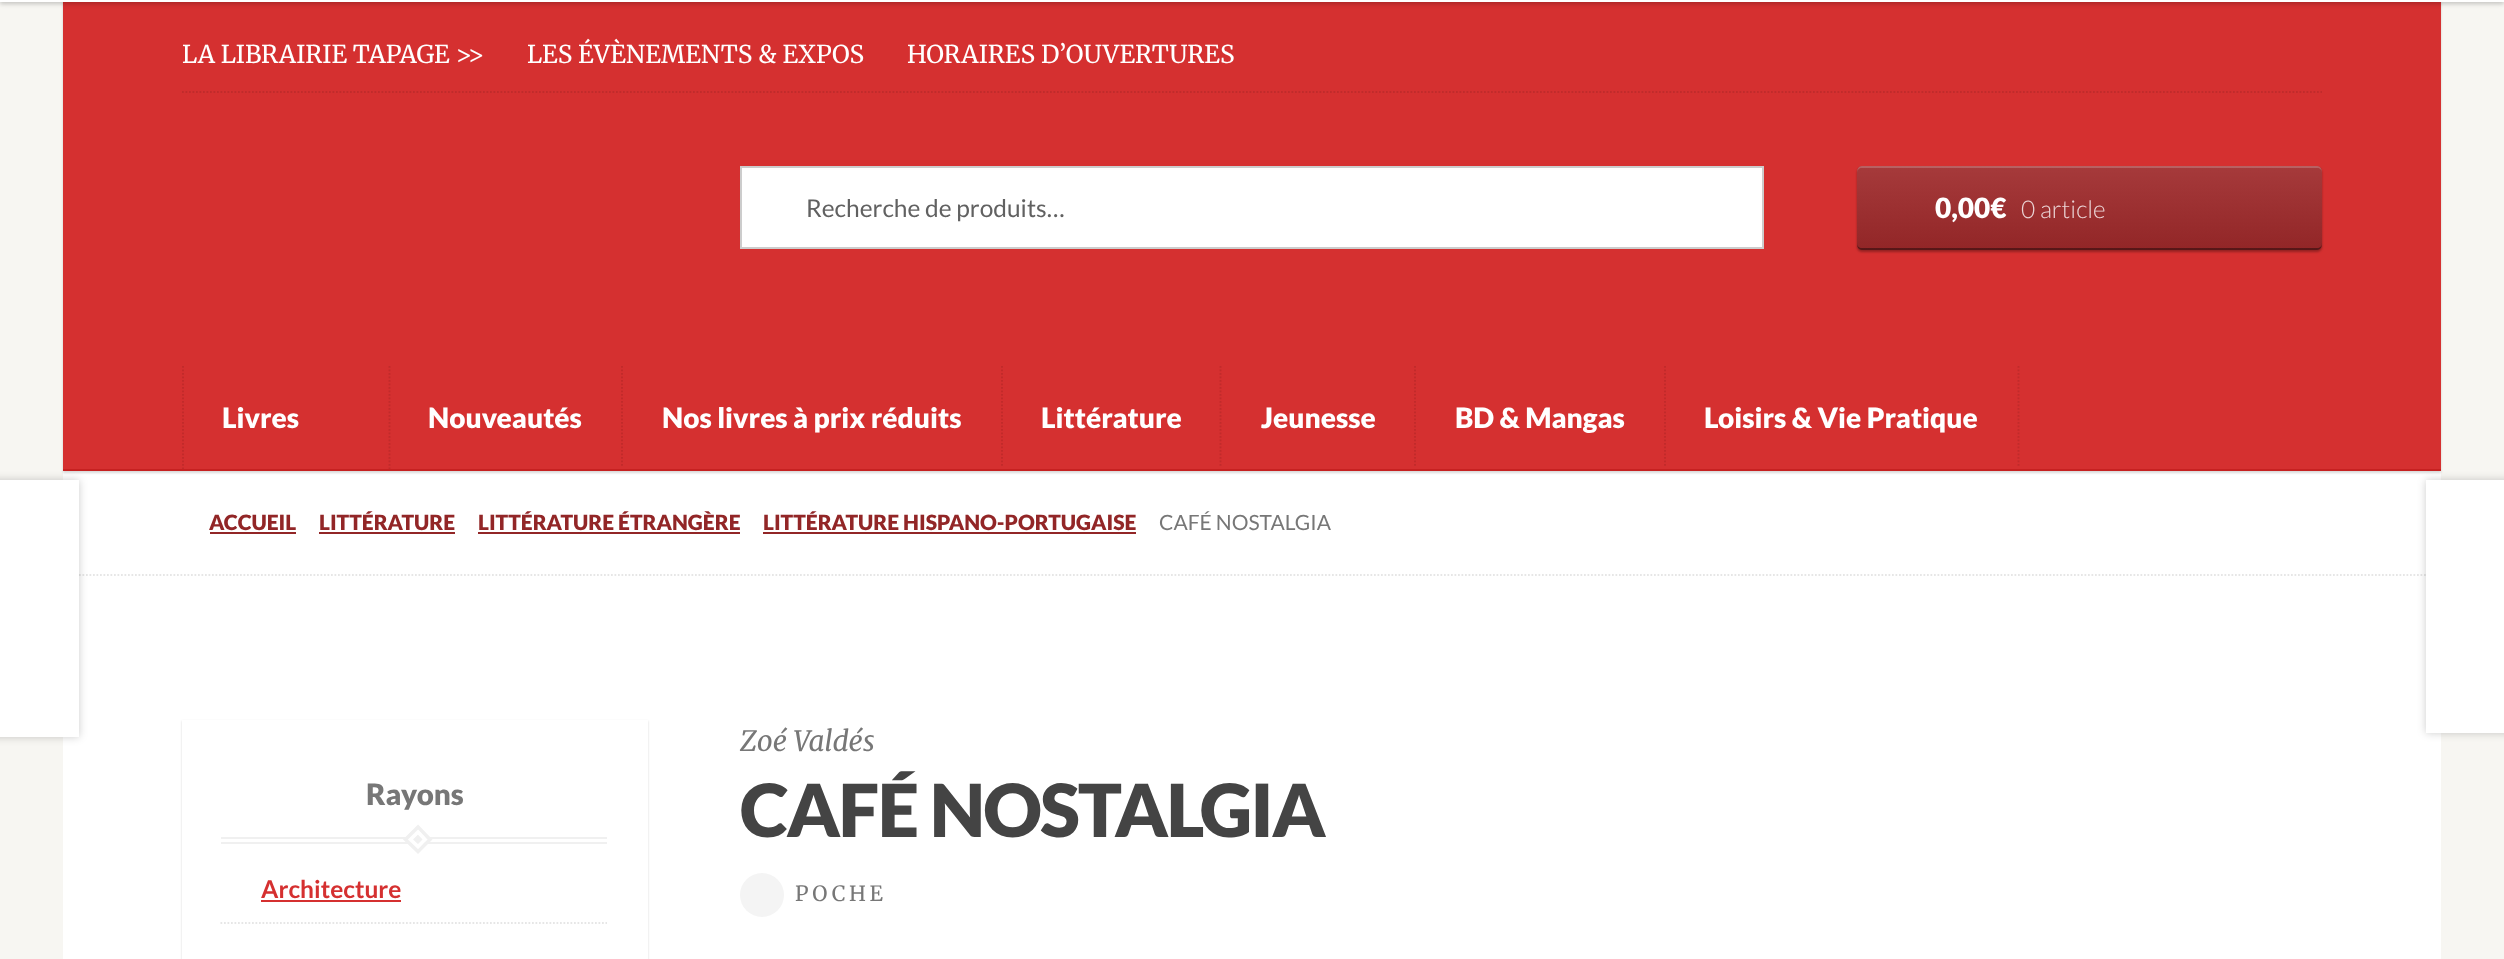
<svg xmlns="http://www.w3.org/2000/svg" width="2504" height="959">
<defs>
<linearGradient id="g1" gradientUnits="userSpaceOnUse" x1="2090" y1="166" x2="2090" y2="250"><stop offset="0" stop-color="#a63a3b"/><stop offset="1" stop-color="#922627"/></linearGradient>
</defs>
<rect width="100%" height="100%" fill="#f7f6f2"/>
<rect x="63" y="471" width="2378" height="488" fill="#fff"/>
<rect x="63" y="2" width="2378" height="471" fill="#00000026" filter="blur(1px)"/>
<rect x="63" y="2" width="2378" height="467" fill="#d53030"/>
<rect y="-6" width="2504" height="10" fill="#00000033" filter="blur(2px)"/>
<rect width="2504" height="2" fill="#fff"/>
<rect x="63" y="469" width="2378" height="2" fill="#c62121"/>
<path d="M182 92h2140" fill="none" stroke="#c02b2b" stroke-width="1.8" stroke-dasharray="1.75 1.75"/>
<text x="182" y="63" style="font-family:Merriweather;font-size:24.5px;fill:#fff">LA LIBRAIRIE TAPAGE &gt;&gt;</text>
<text x="527" y="63" style="font-family:Merriweather;font-size:24.5px;fill:#fff">LES ÉVÈNEMENTS &amp; EXPOS</text>
<text x="907" y="63" style="font-family:Merriweather;font-size:24.5px;fill:#fff">HORAIRES D’OUVERTURES</text>
<rect x="741" y="167" width="1022" height="81" fill="#fff" stroke="#ccc" stroke-width="2"/>
<text x="806" y="217" style="font-family:Lato;font-size:24.5px;fill:#616161">Recherche de produits…</text>
<rect x="1857" y="168" width="465" height="84" rx="5" fill="#0000004d" filter="blur(1px)"/>
<rect x="1857" y="166" width="465" height="84" rx="5" fill="url(#g1)"/>
<path d="M1862 168h455c3 0 5 2 5 5c0-3-1-7-5-7h-455c-4 0-5 4-5 7c0-3 2-5 5-5z" fill="#ffffff33"/>
<path d="M1857 243c0 3 1 7 5 7h455c4 0 5-4 5-7c0 3-2 5-5 5h-455c-3 0-5-2-5-5z" fill="#00000066"/>
<text x="1935" y="218" style="font-family:Lato;font-size:28px;font-weight:900;fill:#fff">0,00€</text>
<text x="2021" y="218" style="font-family:Lato;font-size:24.5px;font-weight:300;fill:#ebd5d6">0 article</text>
<path d="M389.5 366v103" fill="none" stroke="#c02b2b" stroke-width="1.8" stroke-dasharray="1.75 1.75"/>
<path d="M183 366v103" fill="none" stroke="#c02b2b" stroke-width="1.8" stroke-dasharray="1.75 1.75"/>
<text x="222" y="428" style="font-family:Lato;font-size:28px;font-weight:900;fill:#fff">Livres</text>
<path d="M622 366v101" fill="none" stroke="#c02b2b" stroke-width="1.8" stroke-dasharray="1.75 1.75"/>
<text x="428" y="428" style="font-family:Lato;font-size:28px;font-weight:900;fill:#fff">Nouveautés</text>
<path d="M1002 366v101" fill="none" stroke="#c02b2b" stroke-width="1.8" stroke-dasharray="1.75 1.75"/>
<text x="662" y="428" style="font-family:Lato;font-size:28px;font-weight:900;fill:#fff">Nos livres à prix réduits</text>
<path d="M1220.5 366v101" fill="none" stroke="#c02b2b" stroke-width="1.8" stroke-dasharray="1.75 1.75"/>
<text x="1041" y="428" style="font-family:Lato;font-size:28px;font-weight:900;fill:#fff">Littérature</text>
<path d="M1415 366v101" fill="none" stroke="#c02b2b" stroke-width="1.8" stroke-dasharray="1.75 1.75"/>
<text x="1261" y="428" style="font-family:Lato;font-size:28px;font-weight:900;fill:#fff">Jeunesse</text>
<path d="M1665 366v101" fill="none" stroke="#c02b2b" stroke-width="1.8" stroke-dasharray="1.75 1.75"/>
<text x="1455" y="428" style="font-family:Lato;font-size:28px;font-weight:900;fill:#fff">BD &amp; Mangas</text>
<path d="M2018.5 366v101" fill="none" stroke="#c02b2b" stroke-width="1.8" stroke-dasharray="1.75 1.75"/>
<text x="1704" y="428" style="font-family:Lato;font-size:28px;font-weight:900;fill:#fff">Loisirs &amp; Vie Pratique</text>
<path d="M-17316 575h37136.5" fill="none" stroke="#e6e6e6" stroke-width="1.8" stroke-dasharray="1.75 1.75"/>
<text x="209" y="530" style="font-family:Lato;font-size:21px;font-weight:900;fill:#922627">ACCUEIL</text>
<rect x="210" y="532" width="86" height="2" fill="#922627"/>
<text x="319" y="530" style="font-family:Lato;font-size:21px;font-weight:900;fill:#922627">LITTÉRATURE</text>
<rect x="319" y="532" width="136" height="2" fill="#922627"/>
<text x="478" y="530" style="font-family:Lato;font-size:21px;font-weight:900;fill:#922627">LITTÉRATURE ÉTRANGÈRE</text>
<rect x="478" y="532" width="262" height="2" fill="#922627"/>
<text x="763" y="530" style="font-family:Lato;font-size:21px;font-weight:900;fill:#922627">LITTÉRATURE HISPANO-PORTUGAISE</text>
<rect x="763" y="532" width="373" height="2" fill="#922627"/>
<text x="1159" y="530" style="font-family:Lato;font-size:21px;fill:#777">CAFÉ NOSTALGIA</text>
<rect x="182" y="721" width="466" height="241" fill="#00000026" filter="blur(1px)"/>
<rect x="182" y="720" width="466" height="239" fill="#fff"/>
<rect x="221" y="837" width="386" height="2" fill="#f0f0f0"/>
<rect x="221" y="842" width="386" height="2" fill="#f0f0f0"/>
<text x="366" y="805" style="font-family:Lato;font-size:29.5px;font-weight:900;fill:#777">Rayons</text>
<path d="M418 827l12 12.5l-12 12l-12.5-12z" fill="none" stroke="#f0f0f0" stroke-width="3.5"/>
<path d="M418 829.5l9.5 10l-9.5 9.5l-10-9.5z" fill="#f0f0f0"/>
<path d="M418 832l7 7.5l-7 7l-7.5-7z" fill="none" stroke="#fff" stroke-width="3.5"/>
<path d="M220.5 923h386.5" fill="none" stroke="#e6e6e6" stroke-width="1.8" stroke-dasharray="1.75 1.75"/>
<text x="261" y="898" style="font-family:Lato;font-size:24.5px;font-weight:bold;fill:#d53030">Architecture</text>
<rect x="261" y="900" width="140" height="2" fill="#d53030"/>
<rect x="-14" y="480" width="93" height="257" fill="#00000033" filter="blur(4.5px)"/>
<rect y="480" width="79" height="257" fill="#fff"/>
<rect x="2426" y="480" width="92" height="253" fill="#00000033" filter="blur(4.5px)"/>
<rect x="2426" y="480" width="78" height="253" fill="#fff"/>
<text x="740" y="751" style="font-family:Merriweather;font-size:28px;font-weight:300;font-style:italic;fill:#777">Zoé Valdés</text>
<text x="740" y="837" style="font-family:Lato;font-size:73.25px;font-weight:900;letter-spacing:-1.75px;fill:#444">CAFÉ NOSTALGIA</text>
<circle cx="762" cy="895" r="22" fill="#f4f4f4"/>
<text x="795" y="901" style="font-family:Merriweather;font-size:21px;letter-spacing:3.5px;fill:#777">POCHE</text>
</svg>
